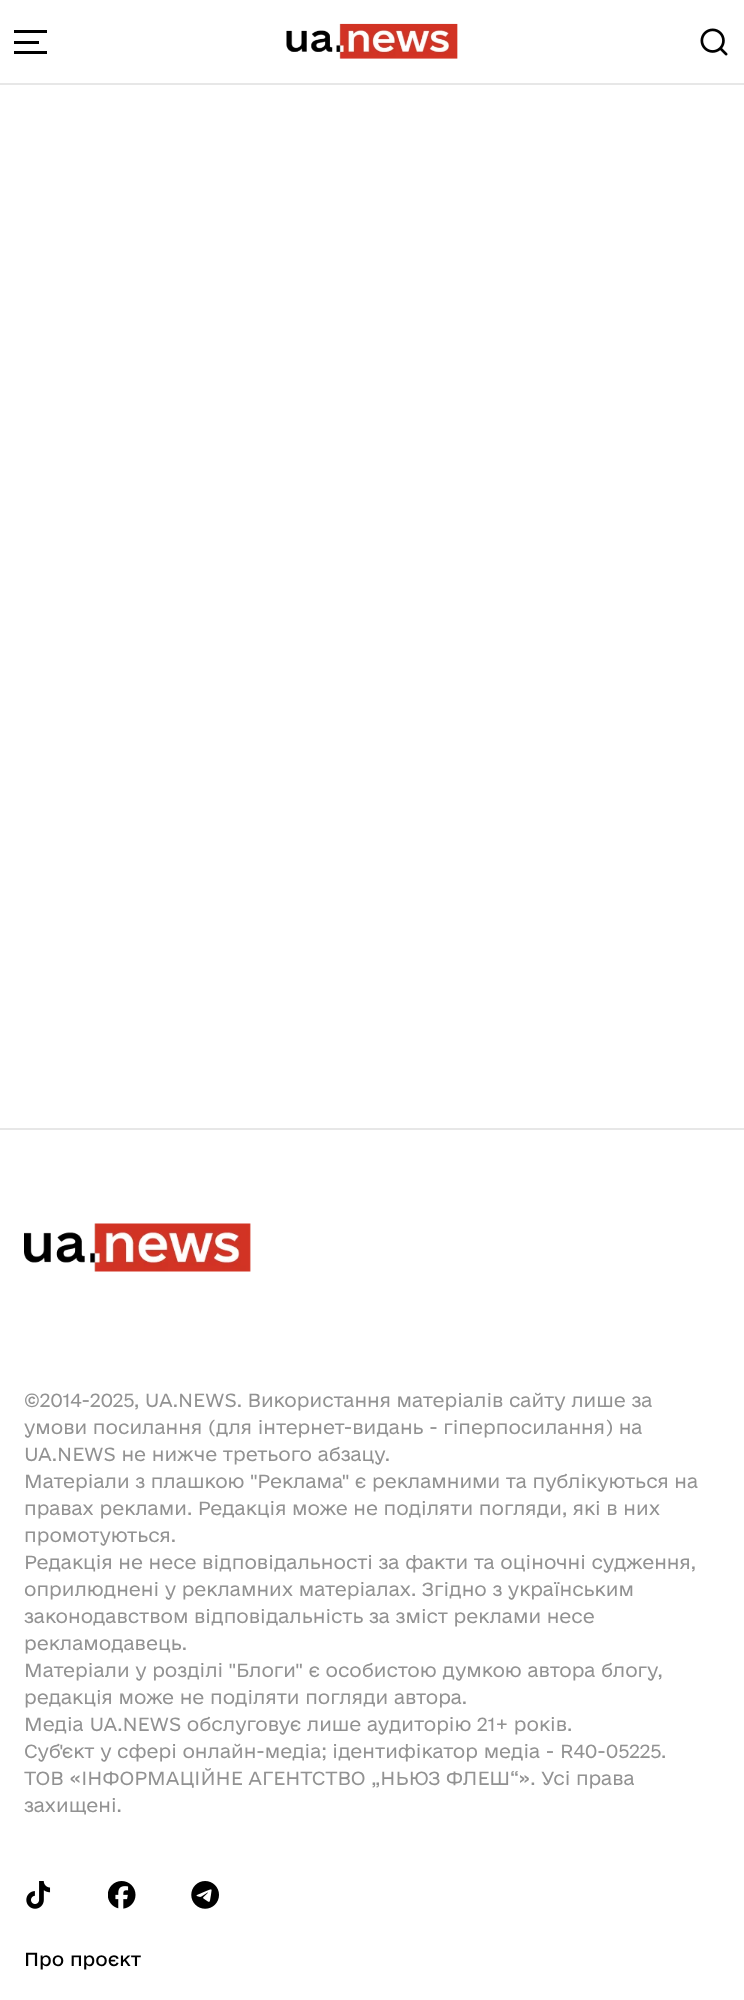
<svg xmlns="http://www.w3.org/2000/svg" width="744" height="2000">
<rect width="100%" height="100%" fill="#fff"/>
<rect y="83" width="744" height="2" fill="#e7e7e7"/>
<rect x="14" y="30" width="33" height="3" fill="#000"/>
<rect x="14" y="41" width="25" height="3" fill="#000"/>
<rect x="14" y="51" width="33" height="3" fill="#000"/>
<image x="286" y="23" width="172" height="36" href="media/1.png"/>
<image x="700" y="28" width="28" height="28" href="media/2.png"/>
<rect y="1128" width="744" height="2" fill="#e7e7e7"/>
<image x="24" y="1223" width="227" height="49" href="media/3.png"/>
<text x="24" y="1407" style="font-family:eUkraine;font-size:18px;font-weight:300;fill:#929292">©2014-2025, UA.NEWS. Використання матеріалів сайту лише за</text>
<text x="24" y="1434" style="font-family:eUkraine;font-size:18px;font-weight:300;fill:#929292">умови посилання (для інтернет-видань - гіперпосилання) на</text>
<text x="24" y="1461" style="font-family:eUkraine;font-size:18px;font-weight:300;fill:#929292">UA.NEWS не нижче третього абзацу.</text>
<text x="24" y="1488" style="font-family:eUkraine;font-size:18px;font-weight:300;fill:#929292">Матеріали з плашкою "Реклама" є рекламними та публікуються на</text>
<text x="24" y="1515" style="font-family:eUkraine;font-size:18px;font-weight:300;fill:#929292">правах реклами. Редакція може не поділяти погляди, які в них</text>
<text x="24" y="1542" style="font-family:eUkraine;font-size:18px;font-weight:300;fill:#929292">промотуються.</text>
<text x="24" y="1569" style="font-family:eUkraine;font-size:18px;font-weight:300;fill:#929292">Редакція не несе відповідальності за факти та оціночні судження,</text>
<text x="24" y="1596" style="font-family:eUkraine;font-size:18px;font-weight:300;fill:#929292">оприлюднені у рекламних матеріалах. Згідно з українським</text>
<text x="24" y="1623" style="font-family:eUkraine;font-size:18px;font-weight:300;fill:#929292">законодавством відповідальність за зміст реклами несе</text>
<text x="24" y="1650" style="font-family:eUkraine;font-size:18px;font-weight:300;fill:#929292">рекламодавець.</text>
<text x="24" y="1677" style="font-family:eUkraine;font-size:18px;font-weight:300;fill:#929292">Матеріали у розділі "Блоги" є особистою думкою автора блогу,</text>
<text x="24" y="1704" style="font-family:eUkraine;font-size:18px;font-weight:300;fill:#929292">редакція може не поділяти погляди автора.</text>
<text x="24" y="1731" style="font-family:eUkraine;font-size:18px;font-weight:300;fill:#929292">Медіа UA.NEWS обслуговує лише аудиторію 21+ років.</text>
<text x="24" y="1758" style="font-family:eUkraine;font-size:18px;font-weight:300;fill:#929292">Cуб'єкт у сфері онлайн-медіа; ідентифікатор медіа - R40-05225.</text>
<text x="24" y="1785" style="font-family:eUkraine;font-size:18px;font-weight:300;fill:#929292">ТОВ «ІНФОРМАЦІЙНЕ АГЕНТСТВО „НЬЮЗ ФЛЕШ“». Усі права</text>
<text x="24" y="1812" style="font-family:eUkraine;font-size:18px;font-weight:300;fill:#929292">захищені.</text>
<image x="26" y="1881" width="25" height="28" href="media/4.png"/>
<image x="108" y="1881" width="28" height="28" href="media/5.png"/>
<image x="191" y="1881" width="28" height="28" href="media/6.png"/>
<text x="24" y="1966" style="font-family:eUkraine;font-size:18px;fill:#000">Про проєкт</text>
</svg>
